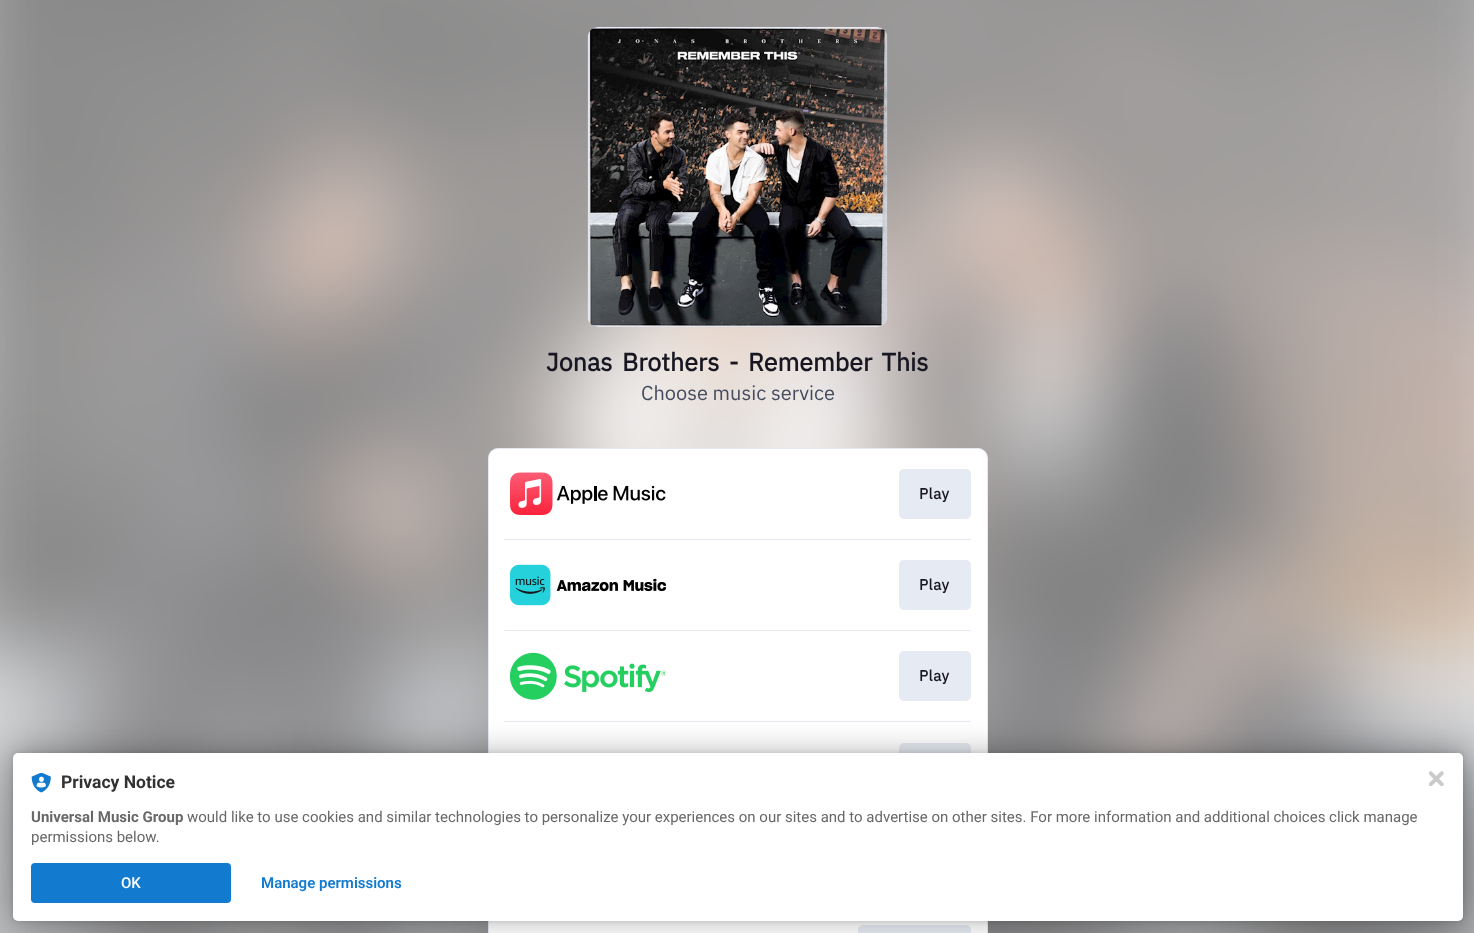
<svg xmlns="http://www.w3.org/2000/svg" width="1474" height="933">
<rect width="100%" height="100%" fill="#fff"/>
<image x="0" y="0" width="1474" height="933" href="media/1.png"/>
<image x="587" y="27" width="301" height="300" href="media/2.png"/>
<text x="546" y="371" word-spacing="3.5" style="font-family:IBM Plex Sans;font-size:25px;font-weight:bold;fill:#181721">Jonas Brothers - Remember This</text>
<text x="641" y="400" style="font-family:IBM Plex Sans;font-size:20px;fill:#454b5f">Choose music service</text>
<rect x="488.5" y="448.5" width="499" height="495" rx="9.5" fill="#fff" stroke="#e6eaf2"/>
<rect x="489" y="449" width="497" height="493" rx="9" fill="#fff"/>
<image x="510" y="472" width="156" height="43" href="media/3.png"/>
<rect x="899" y="469" width="72" height="50" rx="5" fill="#e6eaf2"/>
<text x="919" y="499" style="font-family:IBM Plex Sans;font-size:15px;font-weight:bold;letter-spacing:0.5px;fill:#181721">Play</text>
<rect x="504" y="539" width="467" height="1" fill="#e6eaf2"/>
<image x="510" y="564" width="156" height="42" href="media/4.png"/>
<rect x="899" y="560" width="72" height="50" rx="5" fill="#e6eaf2"/>
<text x="919" y="590" style="font-family:IBM Plex Sans;font-size:15px;font-weight:bold;letter-spacing:0.5px;fill:#181721">Play</text>
<rect x="504" y="630" width="467" height="1" fill="#e6eaf2"/>
<image x="510" y="652" width="156" height="48" href="media/5.png"/>
<rect x="899" y="651" width="72" height="50" rx="5" fill="#e6eaf2"/>
<text x="919" y="681" style="font-family:IBM Plex Sans;font-size:15px;font-weight:bold;letter-spacing:0.5px;fill:#181721">Play</text>
<rect x="504" y="721" width="467" height="1" fill="#e6eaf2"/>
<rect x="899" y="743" width="72" height="50" rx="5" fill="#e6eaf2"/>
<rect x="858" y="925" width="113" height="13" rx="5" fill="#e6eaf2"/>
<rect x="13" y="753" width="1450" height="168" rx="5" fill="#0000001f" filter="blur(2.5px)"/>
<rect x="13" y="753" width="1450" height="168" rx="5" fill="#0000004d" filter="blur(15px)"/>
<rect x="13" y="753" width="1450" height="168" rx="5" fill="#fff"/>
<image x="31" y="773" width="20" height="20" href="media/6.png"/>
<text x="61" y="788" style="font-family:Roboto;font-size:17.5px;font-weight:bold;fill:#323232">Privacy Notice</text>
<text x="31" y="822" style="font-family:Roboto;font-size:15px;font-weight:bold;fill:#686868">Universal Music Group</text>
<text x="187" y="822" style="font-family:Roboto;font-size:15px;fill:#686868">would like to use cookies and similar technologies to personalize your experiences on our sites and to advertise on other sites. For more information and additional choices click manage</text>
<text x="31" y="842" style="font-family:Roboto;font-size:15px;fill:#686868">permissions below.</text>
<rect x="31" y="863" width="200" height="40" rx="4" fill="#137bcf"/>
<text x="121" y="888" style="font-family:Roboto;font-size:15px;font-weight:500;fill:#fff">OK</text>
<text x="261" y="888" style="font-family:Roboto;font-size:15px;font-weight:600;fill:#137bcf">Manage permissions</text>
<image x="1429" y="771" width="15" height="15" href="media/7.png"/>
</svg>
